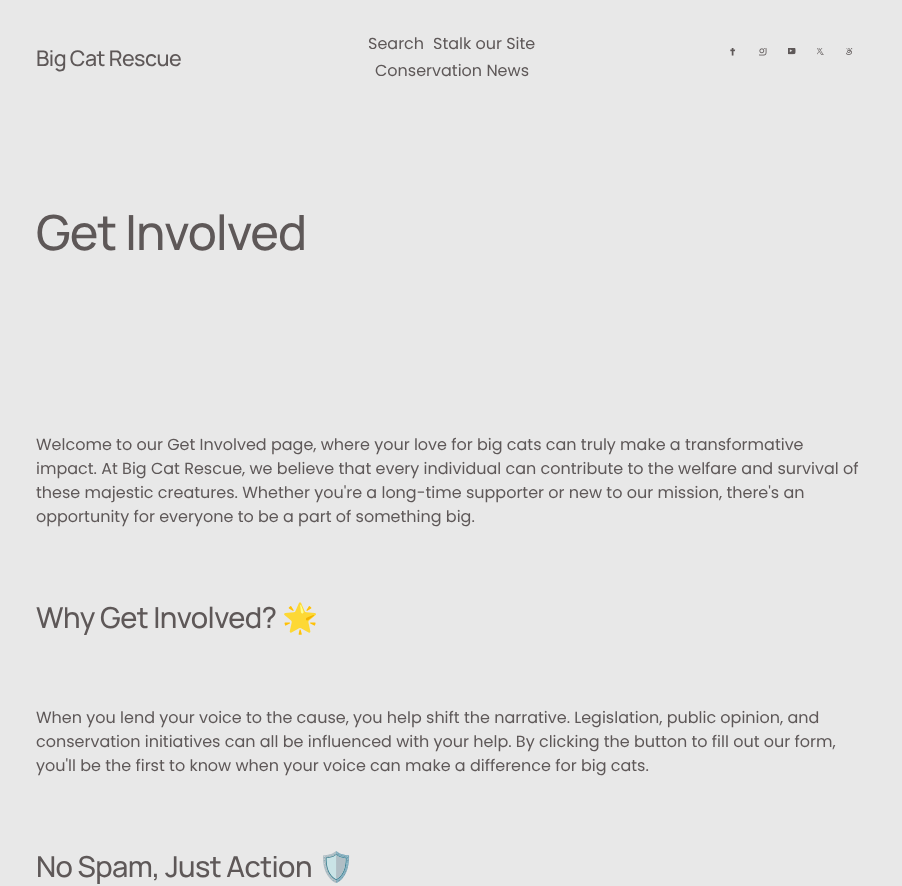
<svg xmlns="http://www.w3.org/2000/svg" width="902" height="886">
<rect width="100%" height="100%" fill="#e8e8e8"/>
<text x="36" y="66" style="font-family:Manrope;font-size:21.5px;font-weight:500;letter-spacing:-0.5px;fill:#5e5858">Big Cat Rescue</text>
<text x="368" y="49" style="font-family:Poppins;font-size:16px;fill:#5e5858">Search</text>
<text x="433" y="49" style="font-family:Poppins;font-size:16px;fill:#5e5858">Stalk our Site</text>
<text x="375" y="76" style="font-family:Poppins;font-size:16px;fill:#5e5858">Conservation News</text>
<image x="730" y="48" width="6" height="8" href="media/1.png"/>
<image x="759" y="48" width="8" height="8" href="media/2.png"/>
<image x="788" y="48" width="8" height="7" href="media/3.png"/>
<image x="817" y="48" width="7" height="7" href="media/4.png"/>
<image x="846" y="48" width="7" height="7" href="media/5.png"/>
<text x="36" y="250" style="font-family:Manrope;font-size:48.5px;font-weight:500;letter-spacing:-1px;fill:#5e5858">Get Involved</text>
<text x="36" y="450" style="font-family:Poppins;font-size:16px;fill:#5e5858">Welcome to our Get Involved page, where your love for big cats can truly make a transformative</text>
<text x="36" y="474" style="font-family:Poppins;font-size:16px;fill:#5e5858">impact. At Big Cat Rescue, we believe that every individual can contribute to the welfare and survival of</text>
<text x="36" y="498" style="font-family:Poppins;font-size:16px;fill:#5e5858">these majestic creatures. Whether you're a long-time supporter or new to our mission, there's an</text>
<text x="36" y="522" style="font-family:Poppins;font-size:16px;fill:#5e5858">opportunity for everyone to be a part of something big.</text>
<text x="36" y="628" style="font-family:Manrope;font-size:29px;font-weight:500;letter-spacing:-0.6px;fill:#5e5858">Why Get Involved?</text>
<text x="282" y="628" style="font-family:Noto Color Emoji;font-size:29px;letter-spacing:-0.6px;fill:#5e5858">🌟</text>
<text x="36" y="723" style="font-family:Poppins;font-size:16px;fill:#5e5858">When you lend your voice to the cause, you help shift the narrative. Legislation, public opinion, and</text>
<text x="36" y="747" style="font-family:Poppins;font-size:16px;fill:#5e5858">conservation initiatives can all be influenced with your help. By clicking the button to fill out our form,</text>
<text x="36" y="771" style="font-family:Poppins;font-size:16px;fill:#5e5858">you'll be the first to know when your voice can make a difference for big cats.</text>
<text x="36" y="877" style="font-family:Manrope;font-size:29px;font-weight:500;letter-spacing:-0.6px;fill:#5e5858">No Spam, Just Action</text>
<text x="318" y="877" style="font-family:Noto Color Emoji;font-size:29px;letter-spacing:-0.6px;fill:#5e5858">🛡️</text>
</svg>
